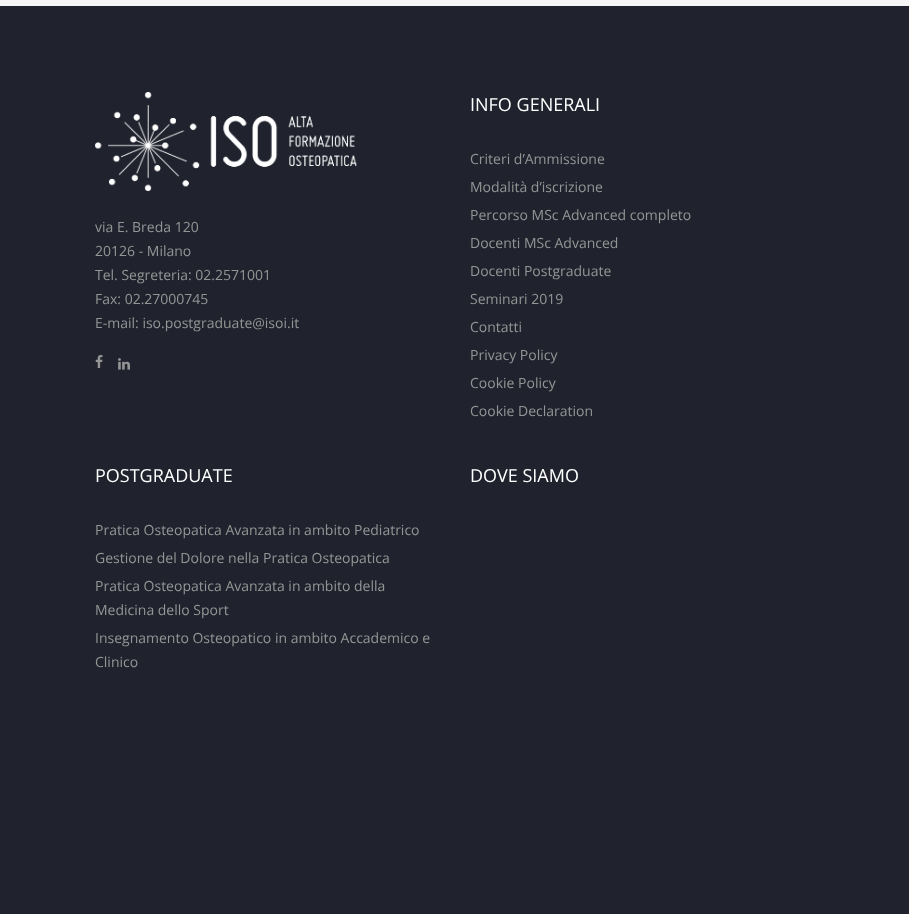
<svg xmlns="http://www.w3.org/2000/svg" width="909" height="914">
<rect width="100%" height="100%" fill="#f6f6f7"/>
<rect y="6" width="909" height="908" fill="#20232e"/>
<image x="95" y="92" width="262" height="99" href="media/1.png"/>
<text x="95" y="232" style="font-family:Open Sans;font-size:14px;fill:#959595">via E. Breda 120</text>
<text x="95" y="256" style="font-family:Open Sans;font-size:14px;fill:#959595">20126 - Milano</text>
<text x="95" y="280" style="font-family:Open Sans;font-size:14px;fill:#959595">Tel. Segreteria: 02.2571001</text>
<text x="95" y="304" style="font-family:Open Sans;font-size:14px;fill:#959595">Fax: 02.27000745</text>
<text x="95" y="328" style="font-family:Open Sans;font-size:14px;fill:#959595">E-mail: iso.postgraduate@isoi.it</text>
<image x="95" y="355" width="8" height="13" href="media/2.png"/>
<image x="118" y="358" width="12" height="12" href="media/3.png"/>
<text x="470" y="111" style="font-family:Open Sans;font-size:18px;fill:#fff">INFO GENERALI</text>
<text x="470" y="164" style="font-family:Open Sans;font-size:14px;fill:#959595">Criteri d’Ammissione</text>
<text x="470" y="192" style="font-family:Open Sans;font-size:14px;fill:#959595">Modalità d’iscrizione</text>
<text x="470" y="220" style="font-family:Open Sans;font-size:14px;fill:#959595">Percorso MSc Advanced completo</text>
<text x="470" y="248" style="font-family:Open Sans;font-size:14px;fill:#959595">Docenti MSc Advanced</text>
<text x="470" y="276" style="font-family:Open Sans;font-size:14px;fill:#959595">Docenti Postgraduate</text>
<text x="470" y="304" style="font-family:Open Sans;font-size:14px;fill:#959595">Seminari 2019</text>
<text x="470" y="332" style="font-family:Open Sans;font-size:14px;fill:#959595">Contatti</text>
<text x="470" y="360" style="font-family:Open Sans;font-size:14px;fill:#959595">Privacy Policy</text>
<text x="470" y="388" style="font-family:Open Sans;font-size:14px;fill:#959595">Cookie Policy</text>
<text x="470" y="416" style="font-family:Open Sans;font-size:14px;fill:#959595">Cookie Declaration</text>
<text x="95" y="482" style="font-family:Open Sans;font-size:18px;fill:#fff">POSTGRADUATE</text>
<text x="95" y="535" style="font-family:Open Sans;font-size:14px;fill:#959595">Pratica Osteopatica Avanzata in ambito Pediatrico</text>
<text x="95" y="563" style="font-family:Open Sans;font-size:14px;fill:#959595">Gestione del Dolore nella Pratica Osteopatica</text>
<text x="95" y="591" style="font-family:Open Sans;font-size:14px;fill:#959595">Pratica Osteopatica Avanzata in ambito della</text>
<text x="95" y="615" style="font-family:Open Sans;font-size:14px;fill:#959595">Medicina dello Sport</text>
<text x="95" y="643" style="font-family:Open Sans;font-size:14px;fill:#959595">Insegnamento Osteopatico in ambito Accademico e</text>
<text x="95" y="667" style="font-family:Open Sans;font-size:14px;fill:#959595">Clinico</text>
<text x="470" y="482" style="font-family:Open Sans;font-size:18px;fill:#fff">DOVE SIAMO</text>
</svg>
